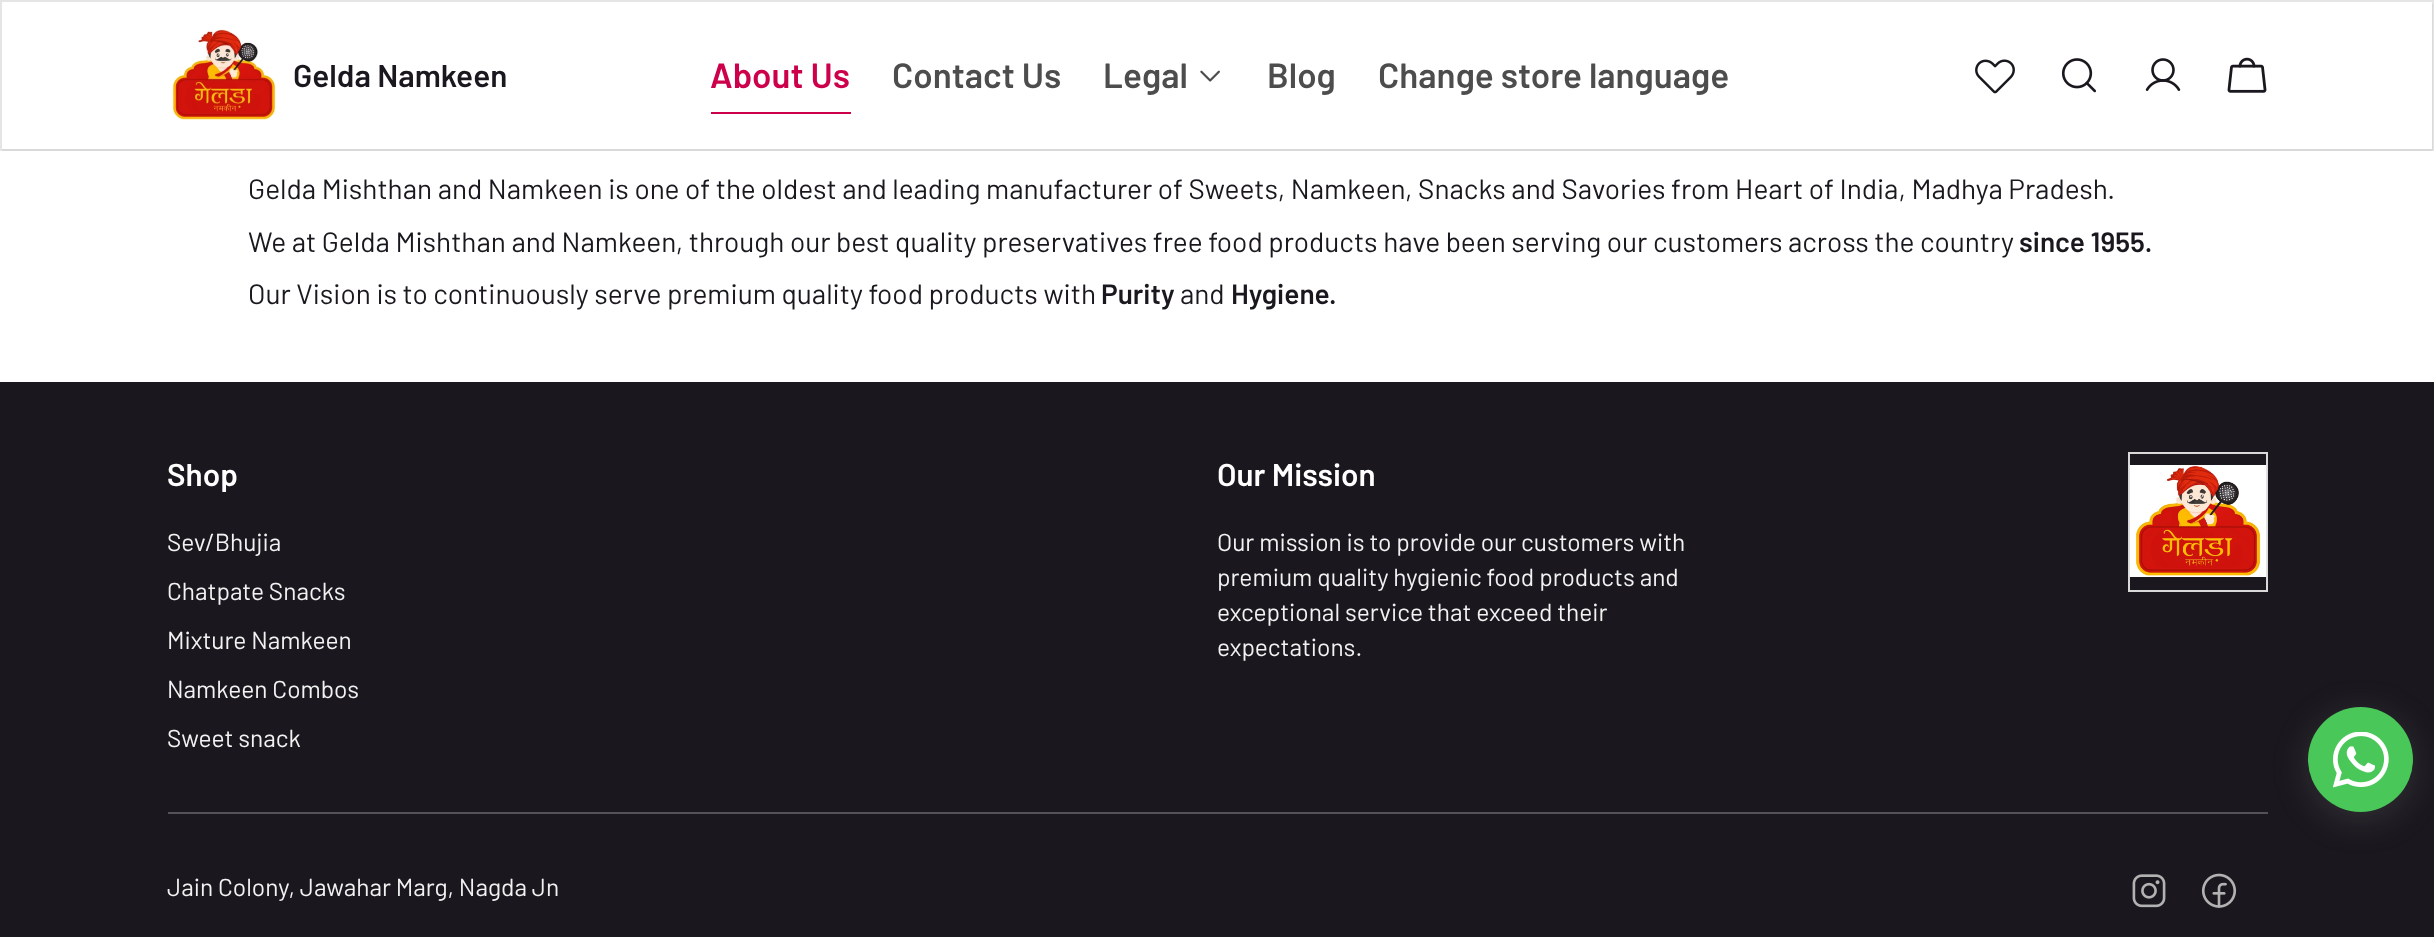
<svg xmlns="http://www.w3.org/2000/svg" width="2434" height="937">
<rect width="100%" height="100%" fill="#fff"/>
<rect x="1" y="1" width="2432" height="149" fill="none" stroke="#e5e5e5" stroke-width="2"/>
<path d="M2 149v2h2431v-147h-1v145z" fill="#d9d9d9"/>
<image x="172" y="29" width="104" height="91" href="media/1.png"/>
<text x="293" y="87" style="font-family:Barlow;font-size:31.5px;font-weight:600;fill:#1a181e">Gelda Namkeen</text>
<rect x="711" y="112" width="140" height="2" fill="#cd004b"/>
<text x="710" y="88" style="font-family:Barlow;font-size:35px;font-weight:600;fill:#cd004b">About Us</text>
<text x="892" y="88" style="font-family:Barlow;font-size:35px;font-weight:600;fill:#4d4d4d">Contact Us</text>
<text x="1103" y="88" style="font-family:Barlow;font-size:35px;font-weight:600;fill:#4d4d4d">Legal</text>
<image x="1200" y="70" width="20" height="12" href="media/2.png"/>
<text x="1267" y="88" style="font-family:Barlow;font-size:35px;font-weight:600;fill:#4d4d4d">Blog</text>
<text x="1378" y="88" style="font-family:Barlow;font-size:35px;font-weight:600;fill:#4d4d4d">Change store language</text>
<image x="1975" y="59" width="40" height="35" href="media/3.png"/>
<image x="2061" y="58" width="35" height="35" href="media/4.png"/>
<image x="2145" y="58" width="36" height="33" href="media/5.png"/>
<image x="2227" y="57" width="40" height="36" href="media/6.png"/>
<text x="248" y="199" style="font-family:Barlow;font-size:28px;fill:#1a181e">Gelda Mishthan and Namkeen is one of the oldest and leading manufacturer of Sweets, Namkeen, Snacks and Savories from Heart of India, Madhya Pradesh.</text>
<text x="248" y="252" style="font-family:Barlow;font-size:28px;fill:#1a181e">We at Gelda Mishthan and Namkeen, through our best quality preservatives free food products have been serving our customers across the country</text>
<text x="2019" y="252" style="font-family:Barlow;font-size:28px;font-weight:600;fill:#1a181e">since 1955.</text>
<text x="248" y="304" style="font-family:Barlow;font-size:28px;fill:#1a181e">Our Vision is to continuously serve premium quality food products with</text>
<text x="1101" y="304" style="font-family:Barlow;font-size:28px;font-weight:600;fill:#1a181e">Purity</text>
<text x="1180" y="304" style="font-family:Barlow;font-size:28px;fill:#1a181e">and</text>
<text x="1231" y="304" style="font-family:Barlow;font-size:28px;font-weight:600;fill:#1a181e">Hygiene.</text>
<rect y="382" width="2434" height="555" fill="#1a181e"/>
<text x="167" y="486" style="font-family:Barlow;font-size:31.5px;font-weight:600;fill:#fff">Shop</text>
<text x="167" y="551" style="font-family:Barlow;font-size:24.5px;fill:#f2f2f2">Sev/Bhujia</text>
<text x="167" y="600" style="font-family:Barlow;font-size:24.5px;fill:#f2f2f2">Chatpate Snacks</text>
<text x="167" y="649" style="font-family:Barlow;font-size:24.5px;fill:#f2f2f2">Mixture Namkeen</text>
<text x="167" y="698" style="font-family:Barlow;font-size:24.5px;fill:#f2f2f2">Namkeen Combos</text>
<text x="167" y="747" style="font-family:Barlow;font-size:24.5px;fill:#f2f2f2">Sweet snack</text>
<text x="1217" y="486" style="font-family:Barlow;font-size:31.5px;font-weight:600;fill:#fff">Our Mission</text>
<text x="1217" y="551" style="font-family:Barlow;font-size:24.5px;fill:#f2f2f2">Our mission is to provide our customers with</text>
<text x="1217" y="586" style="font-family:Barlow;font-size:24.5px;fill:#f2f2f2">premium quality hygienic food products and</text>
<text x="1217" y="621" style="font-family:Barlow;font-size:24.5px;fill:#f2f2f2">exceptional service that exceed their</text>
<text x="1217" y="656" style="font-family:Barlow;font-size:24.5px;fill:#f2f2f2">expectations.</text>
<rect x="2129" y="453" width="138" height="138" fill="none" stroke="#d9d9d9" stroke-width="2"/>
<image x="2129" y="465" width="138" height="112" href="media/7.png"/>
<rect x="168" y="812" width="2100" height="2" fill="#535256"/>
<text x="167" y="896" style="font-family:Barlow;font-size:24.5px;fill:#f2f2f2">Jain Colony, Jawahar Marg, Nagda Jn</text>
<image x="2132" y="874" width="34" height="34" href="media/8.png"/>
<image x="2201" y="873" width="36" height="35" href="media/9.png"/>
<rect x="2308" y="714" width="105" height="105" rx="52.5" fill="#98989833" filter="blur(17.5px)"/>
<circle cx="2360.5" cy="759.5" r="52.5" fill="#49c759"/>
<image x="2333" y="732" width="56" height="56" href="media/10.png"/>
</svg>
